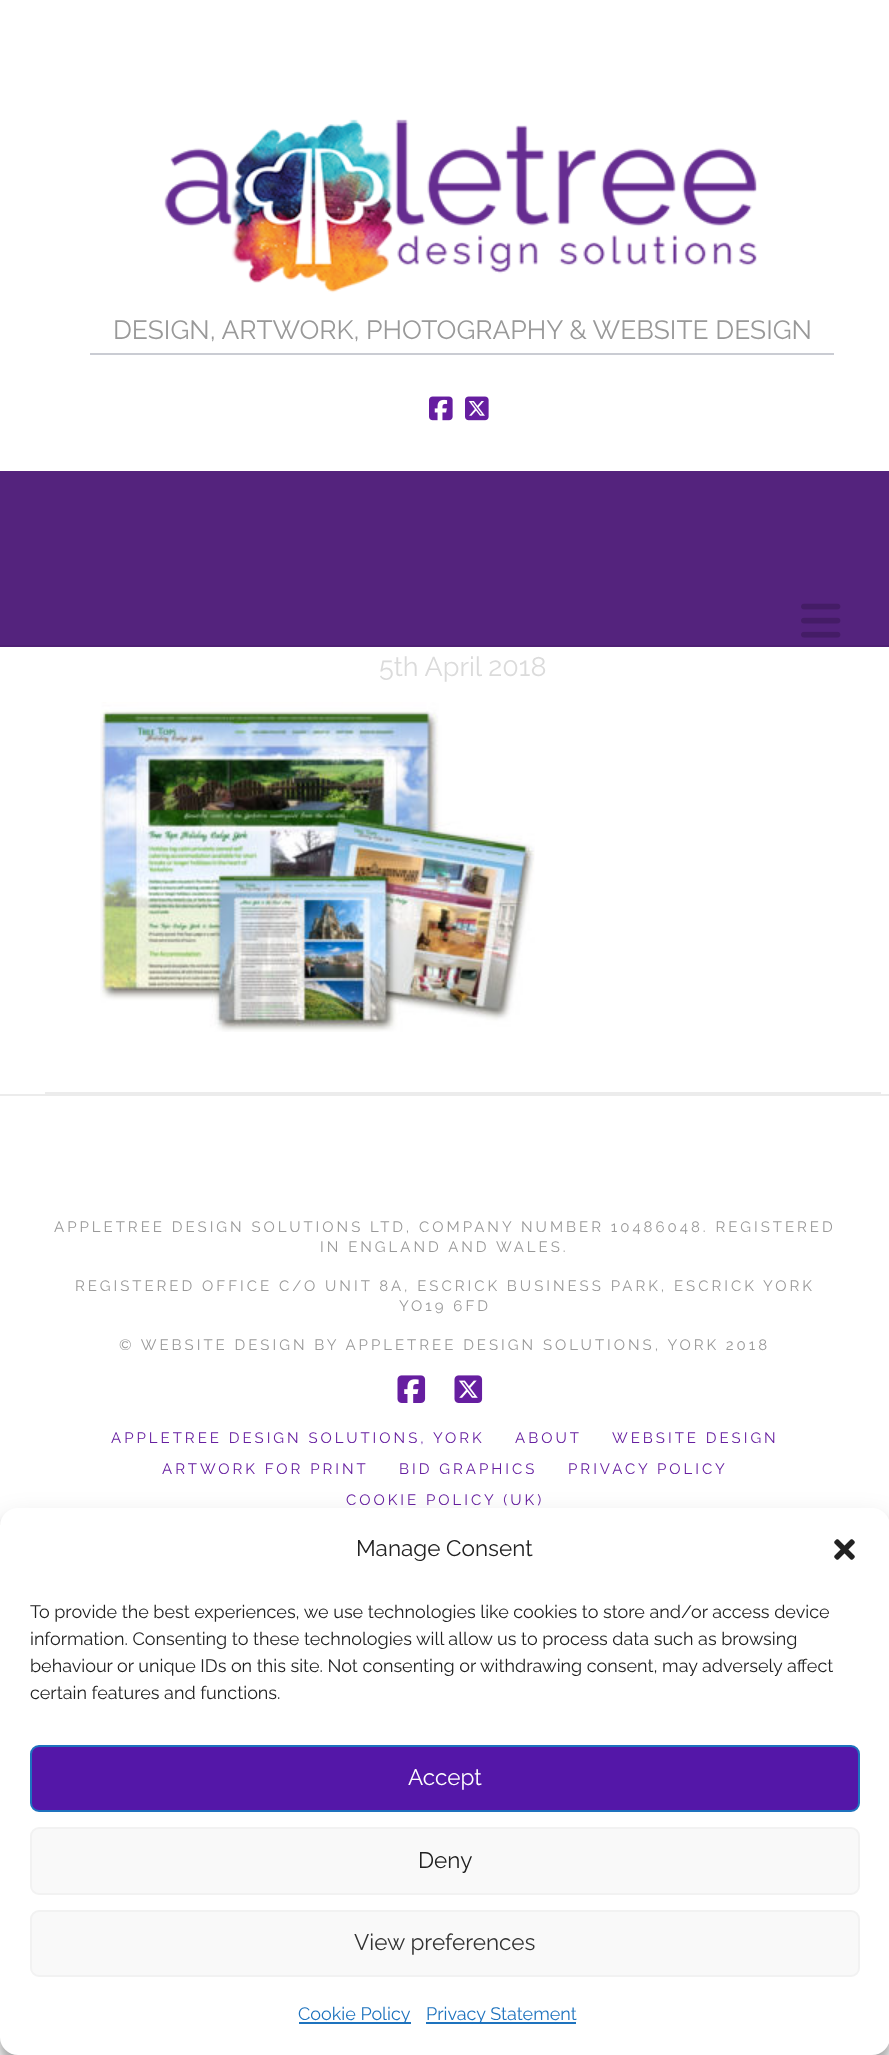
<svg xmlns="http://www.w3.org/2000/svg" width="889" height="2055">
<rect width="100%" height="100%" fill="#fff"/>
<rect x="90" y="353" width="744" height="2" fill="#caccd3"/>
<image x="164" y="119" width="593" height="174" href="media/1.png"/>
<text x="113" y="339" style="font-family:Raleway;font-size:26.4px;fill:#999">DESIGN, ARTWORK, PHOTOGRAPHY &amp; WEBSITE DESIGN</text>
<image x="429" y="396" width="24" height="25" href="media/2.png"/>
<image x="465" y="396" width="24" height="25" href="media/3.png"/>
<rect y="471" width="889" height="174" fill="#54237d"/>
<rect y="645" width="889" height="2" fill="#4e2074"/>
<image x="801" y="603" width="40" height="35" href="media/4.png"/>
<rect x="45" y="1092" width="836" height="2" fill="#ececec"/>
<text x="379" y="676" style="font-family:Raleway;font-size:27px;fill:#dbdbdb">5th April 2018</text>
<image x="100" y="702" width="435" height="330" href="media/5.png"/>
<rect y="1094" width="889" height="2" fill="#ececec"/>
<text x="54" y="1232" style="font-family:Raleway;font-size:15px;letter-spacing:3px;fill:#999">APPLETREE DESIGN SOLUTIONS LTD, COMPANY NUMBER 10486048. REGISTERED</text>
<text x="320" y="1252" style="font-family:Raleway;font-size:15px;letter-spacing:3px;fill:#999">IN ENGLAND AND WALES.</text>
<text x="75" y="1291" style="font-family:Raleway;font-size:15px;letter-spacing:3px;fill:#999">REGISTERED OFFICE C/O UNIT 8A, ESCRICK BUSINESS PARK, ESCRICK YORK</text>
<text x="399" y="1311" style="font-family:Raleway;font-size:15px;letter-spacing:3px;fill:#999">YO19 6FD</text>
<text x="119" y="1350" style="font-family:Raleway;font-size:15px;letter-spacing:3px;fill:#999">© WEBSITE DESIGN BY APPLETREE DESIGN SOLUTIONS, YORK 2018</text>
<image x="397" y="1375" width="29" height="28" href="media/6.png"/>
<image x="454" y="1375" width="29" height="28" href="media/7.png"/>
<text x="111" y="1443" style="font-family:Raleway;font-size:15px;letter-spacing:3px;fill:#661ea0">APPLETREE DESIGN SOLUTIONS, YORK</text>
<text x="515" y="1443" style="font-family:Raleway;font-size:15px;letter-spacing:3px;fill:#661ea0">ABOUT</text>
<text x="612" y="1443" style="font-family:Raleway;font-size:15px;letter-spacing:3px;fill:#661ea0">WEBSITE DESIGN</text>
<text x="162" y="1474" style="font-family:Raleway;font-size:15px;letter-spacing:3px;fill:#661ea0">ARTWORK FOR PRINT</text>
<text x="399" y="1474" style="font-family:Raleway;font-size:15px;letter-spacing:3px;fill:#661ea0">BID GRAPHICS</text>
<text x="568" y="1474" style="font-family:Raleway;font-size:15px;letter-spacing:3px;fill:#661ea0">PRIVACY POLICY</text>
<text x="346" y="1505" style="font-family:Raleway;font-size:15px;letter-spacing:3px;fill:#661ea0">COOKIE POLICY (UK)</text>
<rect y="1517" width="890" height="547" rx="18" fill="#0000003b" filter="blur(4.5px)"/>
<rect y="1523" width="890" height="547" rx="18" fill="#00000030" filter="blur(15px)"/>
<rect y="1508" width="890" height="547" rx="18" fill="#fff"/>
<text x="356" y="1556" style="font-family:Raleway;font-size:22.5px;fill:#222">Manage Consent</text>
<image x="834" y="1539" width="21" height="21" href="media/8.png"/>
<text x="30" y="1618" style="font-family:Raleway;font-size:18px;fill:#222">To provide the best experiences, we use technologies like cookies to store and/or access device</text>
<text x="30" y="1645" style="font-family:Raleway;font-size:18px;fill:#222">information. Consenting to these technologies will allow us to process data such as browsing</text>
<text x="30" y="1672" style="font-family:Raleway;font-size:18px;fill:#222">behaviour or unique IDs on this site. Not consenting or withdrawing consent, may adversely affect</text>
<text x="30" y="1699" style="font-family:Raleway;font-size:18px;fill:#222">certain features and functions.</text>
<rect x="31" y="1746" width="828" height="65" rx="8" fill="#5417a8" stroke="#1e73be" stroke-width="2"/>
<text x="408" y="1785" style="font-family:Raleway;font-size:22.5px;fill:#fff">Accept</text>
<rect x="31" y="1828" width="828" height="66" rx="8" fill="#f9f9f9" stroke="#f2f2f2" stroke-width="2"/>
<text x="418" y="1868" style="font-family:Raleway;font-size:22.5px;fill:#222">Deny</text>
<rect x="31" y="1911" width="828" height="65" rx="8" fill="#f9f9f9" stroke="#f2f2f2" stroke-width="2"/>
<text x="354" y="1950" style="font-family:Raleway;font-size:22.5px;fill:#333">View preferences</text>
<rect x="299" y="2022" width="112" height="2" fill="#1e73be"/>
<text x="298" y="2020" style="font-family:Raleway;font-size:18px;fill:#1e73be">Cookie Policy</text>
<rect x="426" y="2022" width="150" height="2" fill="#1e73be"/>
<text x="426" y="2020" style="font-family:Raleway;font-size:18px;fill:#1e73be">Privacy Statement</text>
</svg>
